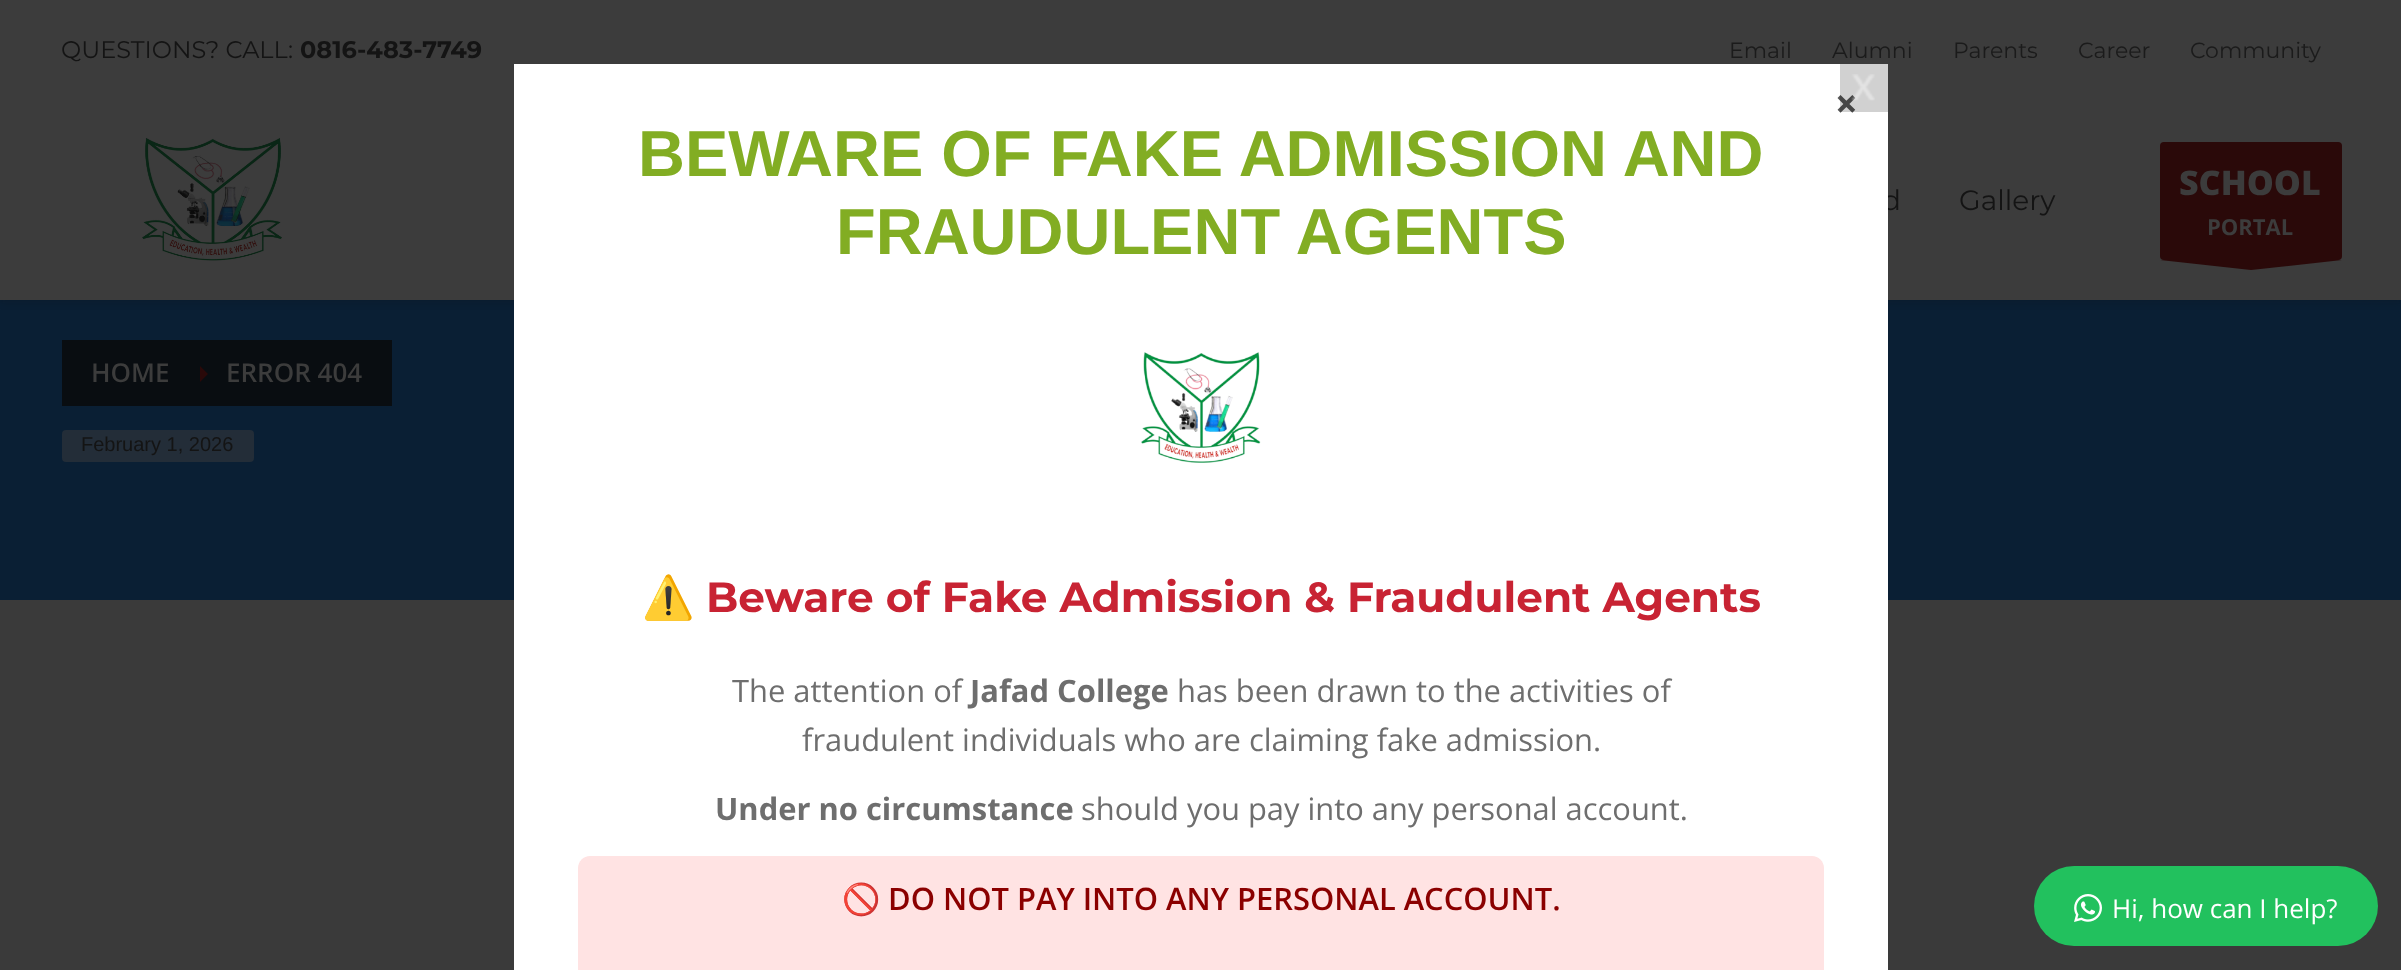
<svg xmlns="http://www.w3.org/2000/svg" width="2401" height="970">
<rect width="100%" height="100%" fill="#3a3a3a"/>
<rect y="300" width="2401" height="300" fill="#0a1f34"/>
<rect width="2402" height="300" fill="#09090940" filter="blur(5px)"/>
<rect width="2401" height="300" fill="#3c3c3c"/>
<text x="61" y="58" style="font-family:Montserrat;font-size:24px;fill:#141414">QUESTIONS? CALL:</text>
<text x="300" y="58" style="font-family:Montserrat;font-size:24px;font-weight:bold;fill:#141414">0816-483-7749</text>
<text x="1729" y="58" style="font-family:Montserrat;font-size:22px;fill:#1b1b1b">Email</text>
<text x="1832" y="58" style="font-family:Montserrat;font-size:22px;fill:#1b1b1b">Alumni</text>
<text x="1953" y="58" style="font-family:Montserrat;font-size:22px;fill:#1b1b1b">Parents</text>
<text x="2078" y="58" style="font-family:Montserrat;font-size:22px;fill:#1b1b1b">Career</text>
<text x="2190" y="58" style="font-family:Montserrat;font-size:22px;fill:#1b1b1b">Community</text>
<image x="142" y="137" width="140" height="124" href="media/1.png"/>
<text x="1882" y="210" style="font-family:Montserrat;font-size:28px;fill:#141414">d</text>
<text x="1959" y="210" style="font-family:Montserrat;font-size:28px;fill:#141414">Gallery</text>
<rect x="2160" y="142" width="182" height="118" rx="4" fill="#2a0909"/>
<text x="2179" y="195" style="font-family:Open Sans;font-size:34px;font-weight:800;fill:#3c3c3c">SCHOOL</text>
<text x="2207" y="235" style="font-family:Open Sans;font-size:22px;font-weight:bold;fill:#3c3c3c">PORTAL</text>
<path d="M2342 260l-91 10l-91-10z" fill="#2a0909" fill-rule="evenodd"/>
<rect x="62" y="340" width="330" height="66" fill="#090d11"/>
<text x="91" y="382" style="font-family:Open Sans;font-size:26px;font-weight:600;fill:#3c3c3c">HOME</text>
<path d="M200 382v-16l8 8z" fill="#2a0909"/>
<text x="226" y="382" style="font-family:Open Sans;font-size:26px;font-weight:600;fill:#3c3c3c">ERROR 404</text>
<rect x="62" y="430" width="192" height="32" rx="4" fill="#232d38"/>
<text x="81" y="451" style="font-family:Liberation Sans;font-size:20px;fill:#141414">February 1, 2026</text>
<rect x="514" y="64" width="1374" height="906" fill="#fff"/>
<text x="1835" y="118" style="font-family:Open Sans;font-size:40px;font-weight:bold;fill:#555">×</text>
<rect x="1840" y="64" width="48" height="48" fill="#0000002e"/>
<image x="1851" y="74" width="24" height="27" href="media/2.png"/>
<image x="1141" y="352" width="120" height="111" href="media/3.png"/>
<text x="642" y="612" style="font-family:Noto Color Emoji;font-size:42.25px;font-weight:bold;fill:#c82333">⚠️</text>
<text x="706" y="612" style="font-family:Montserrat;font-size:42.25px;font-weight:bold;fill:#c82333">Beware of Fake Admission &amp; Fraudulent Agents</text>
<text x="732" y="702" style="font-family:Open Sans;font-size:30.9px;fill:#6e6e6e">The attention of</text>
<text x="970" y="702" style="font-family:Open Sans;font-size:30.9px;font-weight:bold;fill:#6e6e6e">Jafad College</text>
<text x="1177" y="702" style="font-family:Open Sans;font-size:30.9px;fill:#6e6e6e">has been drawn to the activities of</text>
<text x="802" y="751" style="font-family:Open Sans;font-size:30.9px;fill:#6e6e6e">fraudulent individuals who are claiming fake admission.</text>
<text x="715" y="820" style="font-family:Open Sans;font-size:30.9px;font-weight:bold;fill:#6e6e6e">Under no circumstance</text>
<text x="1081" y="820" style="font-family:Open Sans;font-size:30.9px;fill:#6e6e6e">should you pay into any personal account.</text>
<path d="M590 856h1222c6.5 0 12 5.5 12 12v102h-1246v-102c0-6.5 5.5-12 12-12z" fill="#ffe3e3"/>
<text x="842" y="910" style="font-family:Noto Color Emoji;font-size:30.9px;font-weight:bold;fill:#8b0000">🚫</text>
<text x="888" y="910" style="font-family:Open Sans;font-size:30.9px;font-weight:600;fill:#8b0000">DO NOT PAY INTO ANY PERSONAL ACCOUNT.</text>
<text x="638" y="176" style="font-family:Liberation Sans;font-size:65px;font-weight:bold;fill:#82ad23">BEWARE OF FAKE ADMISSION AND</text>
<text x="836" y="254" style="font-family:Liberation Sans;font-size:65px;font-weight:bold;fill:#82ad23">FRAUDULENT AGENTS</text>
<rect x="2034" y="866" width="344" height="80" rx="40" fill="#22c15e"/>
<image x="2074" y="894" width="28" height="28" href="media/4.png"/>
<text x="2112" y="918" style="font-family:Open Sans;font-size:26px;fill:#fff">Hi, how can I help?</text>
</svg>
